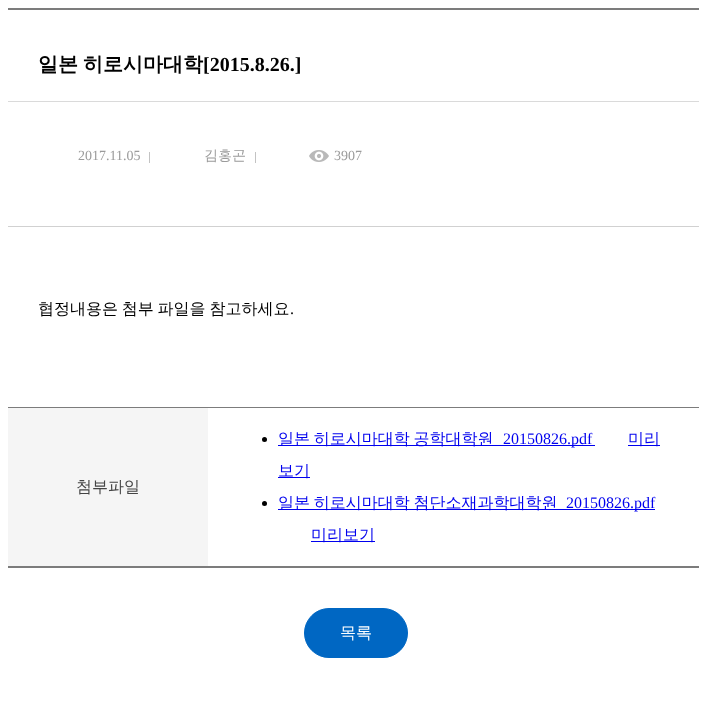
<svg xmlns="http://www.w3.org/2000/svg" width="707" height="728">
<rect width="100%" height="100%" fill="#fff"/>
<rect x="8" y="8" width="691" height="2" fill="#7c7c7c"/>
<rect x="8" y="101" width="691" height="1" fill="#dadada"/>
<text x="38" y="71" word-spacing="-1" style="font-family:WenQuanYi Zen Hei;font-size:20px;font-weight:bold;fill:#000">일본 히로시마대학</text>
<text x="203" y="71" style="font-family:Liberation Serif;font-size:20px;font-weight:bold;fill:#000">[2015.8.26.]</text>
<rect x="8" y="226" width="691" height="1" fill="#d1d1d1"/>
<text x="78" y="160" style="font-family:Liberation Serif;font-size:14px;fill:#9b9b9b">2017.11.05</text>
<rect x="149" y="152" width="1" height="11" fill="#c3c3c3"/>
<text x="204" y="160" style="font-family:WenQuanYi Zen Hei;font-size:14px;font-weight:500;fill:#9b9b9b">김홍곤</text>
<rect x="255" y="152" width="1" height="11" fill="#c3c3c3"/>
<image x="309" y="150" width="20" height="12" href="media/1.png"/>
<text x="334" y="160" style="font-family:Liberation Serif;font-size:14px;fill:#9b9b9b">3907</text>
<text x="38" y="314" word-spacing="-1" style="font-family:WenQuanYi Zen Hei;font-size:16px;font-weight:500;fill:#000">협정내용은 첨부 파일을 참고하세요</text>
<text x="290" y="314" style="font-family:Liberation Serif;font-size:16px;fill:#000">.</text>
<rect x="8" y="407" width="691" height="1" fill="#7c7c7c"/>
<rect x="8" y="566" width="691" height="2" fill="#7c7c7c"/>
<rect x="8" y="408" width="200" height="158" fill="#f5f5f5"/>
<text x="76" y="492" style="font-family:WenQuanYi Zen Hei;font-size:16px;font-weight:500;fill:#444">첨부파일</text>
<circle cx="264.5" cy="439.5" r="2.5" fill="#000"/>
<rect x="278" y="445" width="317" height="1" fill="#00e"/>
<text x="278" y="444" word-spacing="-1" style="font-family:WenQuanYi Zen Hei;font-size:16px;font-weight:500;fill:#00e">일본 히로시마대학 공학대학원</text>
<text x="503" y="444" style="font-family:Liberation Serif;font-size:16px;fill:#00e">20150826.pdf</text>
<rect x="628" y="445" width="32" height="1" fill="#00e"/>
<text x="628" y="444" style="font-family:WenQuanYi Zen Hei;font-size:16px;font-weight:500;fill:#00e">미리</text>
<rect x="278" y="477" width="32" height="1" fill="#00e"/>
<text x="278" y="476" style="font-family:WenQuanYi Zen Hei;font-size:16px;font-weight:500;fill:#00e">보기</text>
<circle cx="264.5" cy="503.5" r="2.5" fill="#000"/>
<rect x="278" y="509" width="377" height="1" fill="#00e"/>
<text x="278" y="508" word-spacing="-1" style="font-family:WenQuanYi Zen Hei;font-size:16px;font-weight:500;fill:#00e">일본 히로시마대학 첨단소재과학대학원</text>
<text x="566" y="508" style="font-family:Liberation Serif;font-size:16px;fill:#00e">20150826.pdf</text>
<rect x="311" y="541" width="64" height="1" fill="#00e"/>
<text x="311" y="540" style="font-family:WenQuanYi Zen Hei;font-size:16px;font-weight:500;fill:#00e">미리보기</text>
<rect x="304.5" y="608.5" width="103" height="49" rx="24.5" fill="#0067c3" stroke="#0067c3"/>
<text x="340" y="638" style="font-family:WenQuanYi Zen Hei;font-size:16px;font-weight:500;fill:#fff">목록</text>
</svg>
